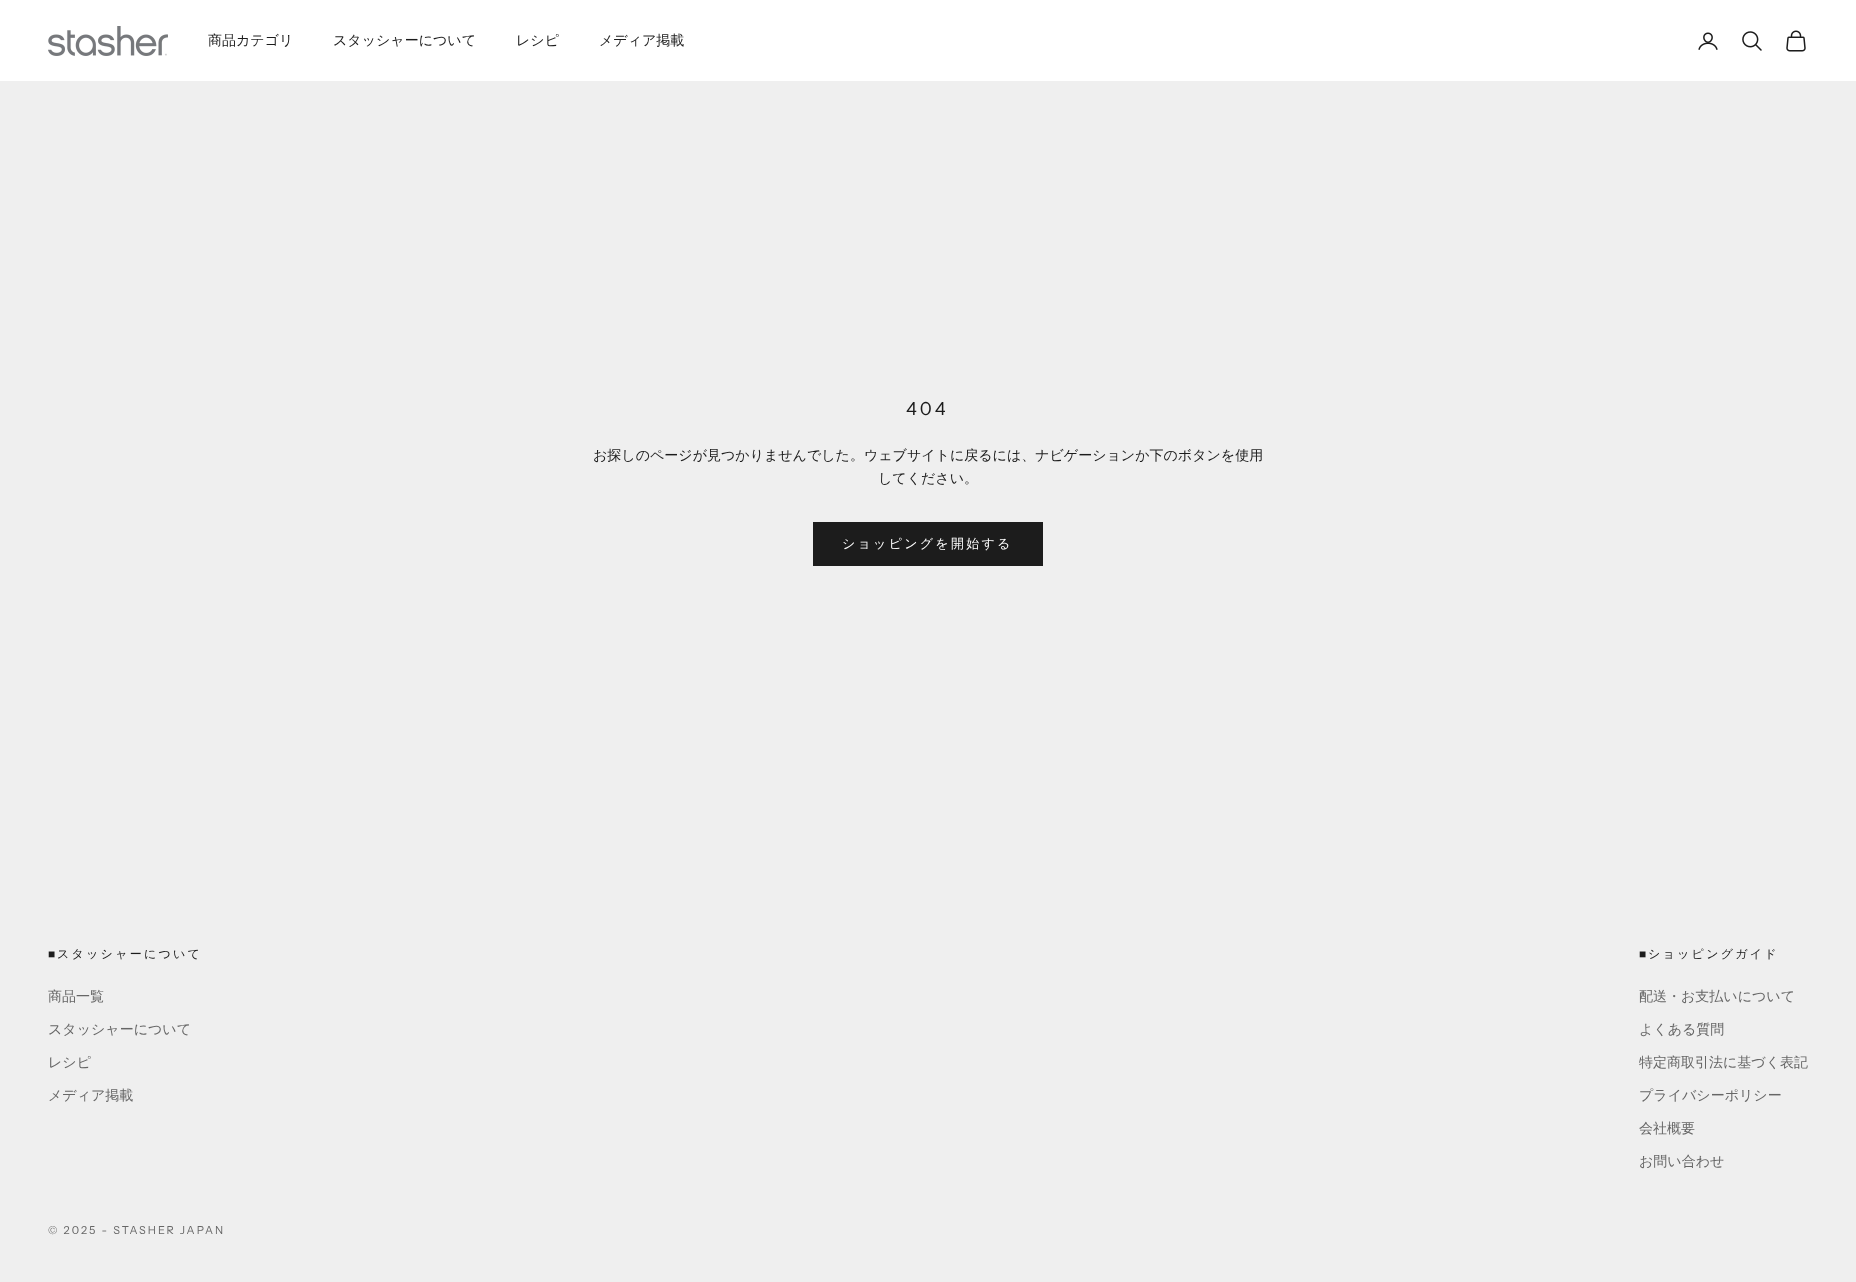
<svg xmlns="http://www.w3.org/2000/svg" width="1856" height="1282">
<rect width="100%" height="100%" fill="#efefef"/>
<rect width="1856" height="81" fill="#fff"/>
<image x="48" y="26" width="120" height="30" href="media/1.png"/>
<text x="208" y="45" style="font-family:WenQuanYi Zen Hei;font-size:14px;font-weight:500;fill:#1c1c1c">商品カテゴリ</text>
<text x="333" y="45" style="font-family:WenQuanYi Zen Hei;font-size:14px;font-weight:500;fill:#1c1c1c">スタッシャーについて</text>
<text x="516" y="45" style="font-family:WenQuanYi Zen Hei;font-size:14px;font-weight:500;fill:#1c1c1c">レシピ</text>
<text x="599" y="45" style="font-family:WenQuanYi Zen Hei;font-size:14px;font-weight:500;fill:#1c1c1c">メディア掲載</text>
<image x="1698" y="32" width="20" height="18" href="media/2.png"/>
<image x="1742" y="31" width="20" height="20" href="media/3.png"/>
<image x="1786" y="30" width="20" height="22" href="media/4.png"/>
<text x="906" y="415" style="font-family:Instrument Sans;font-size:18px;letter-spacing:3px;fill:#1c1c1c">404</text>
<text x="593" y="460" style="font-family:WenQuanYi Zen Hei;font-size:14px;font-weight:500;fill:#1c1c1c">お探しのページが見つかりませんでした。ウェブサイトに戻るには、ナビゲーションか下のボタンを使用</text>
<text x="878" y="483" style="font-family:WenQuanYi Zen Hei;font-size:14px;font-weight:500;fill:#1c1c1c">してください。</text>
<rect x="813.5" y="522.5" width="229" height="43" fill="#1c1c1c" stroke="#1c1c1c"/>
<text x="842" y="548" style="font-family:WenQuanYi Zen Hei;font-size:13px;font-weight:500;letter-spacing:2.25px;fill:#fff">ショッピングを開始する</text>
<text x="48" y="958" style="font-family:Liberation Sans;font-size:12px;letter-spacing:2.25px;fill:#1c1c1c">■</text>
<text x="57" y="958" style="font-family:WenQuanYi Zen Hei;font-size:12px;font-weight:500;letter-spacing:2.25px;fill:#1c1c1c">スタッシャーについて</text>
<text x="48" y="1001" style="font-family:WenQuanYi Zen Hei;font-size:14px;font-weight:500;fill:#666">商品一覧</text>
<text x="48" y="1034" style="font-family:WenQuanYi Zen Hei;font-size:14px;font-weight:500;fill:#666">スタッシャーについて</text>
<text x="48" y="1067" style="font-family:WenQuanYi Zen Hei;font-size:14px;font-weight:500;fill:#666">レシピ</text>
<text x="48" y="1100" style="font-family:WenQuanYi Zen Hei;font-size:14px;font-weight:500;fill:#666">メディア掲載</text>
<text x="1639" y="958" style="font-family:Liberation Sans;font-size:12px;letter-spacing:2.25px;fill:#1c1c1c">■</text>
<text x="1648" y="958" style="font-family:WenQuanYi Zen Hei;font-size:12px;font-weight:500;letter-spacing:2.25px;fill:#1c1c1c">ショッピングガイド</text>
<text x="1639" y="1001" style="font-family:WenQuanYi Zen Hei;font-size:14px;font-weight:500;fill:#666">配送・お支払いについて</text>
<text x="1639" y="1034" style="font-family:WenQuanYi Zen Hei;font-size:14px;font-weight:500;fill:#666">よくある質問</text>
<text x="1639" y="1067" style="font-family:WenQuanYi Zen Hei;font-size:14px;font-weight:500;fill:#666">特定商取引法に基づく表記</text>
<text x="1639" y="1100" style="font-family:WenQuanYi Zen Hei;font-size:14px;font-weight:500;fill:#666">プライバシーポリシー</text>
<text x="1639" y="1133" style="font-family:WenQuanYi Zen Hei;font-size:14px;font-weight:500;fill:#666">会社概要</text>
<text x="1639" y="1166" style="font-family:WenQuanYi Zen Hei;font-size:14px;font-weight:500;fill:#666">お問い合わせ</text>
<text x="48" y="1234" style="font-family:Instrument Sans;font-size:11px;letter-spacing:2px;fill:#666">© 2025 - STASHER JAPAN</text>
</svg>
